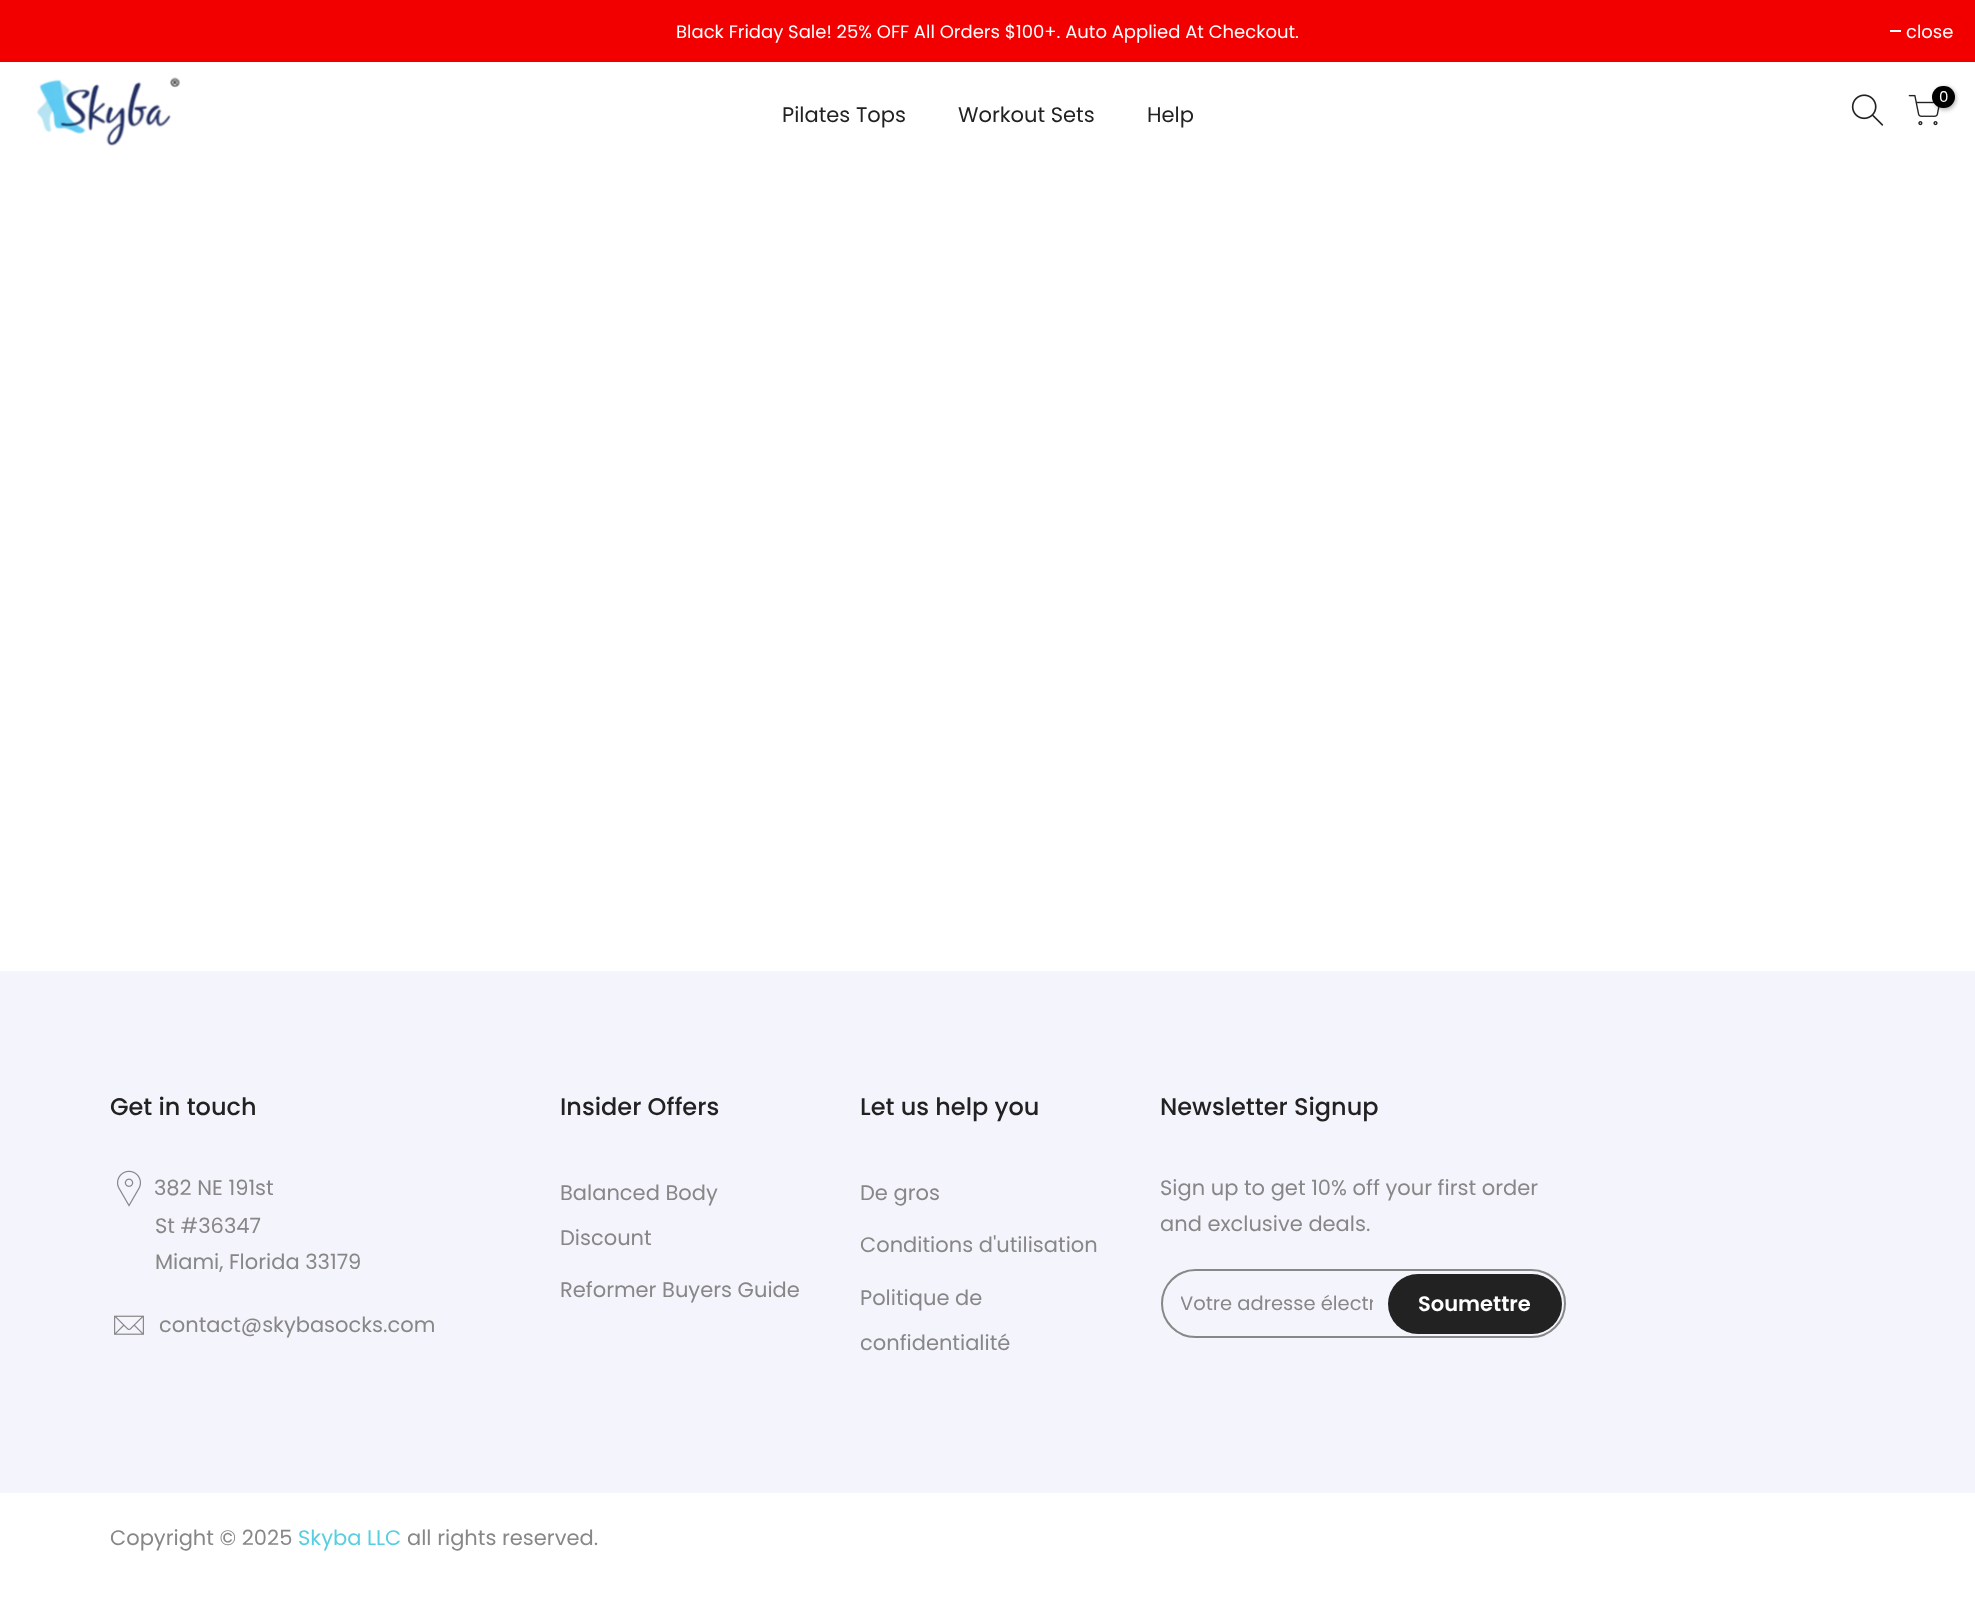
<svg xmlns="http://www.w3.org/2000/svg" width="1975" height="1607">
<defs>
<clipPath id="clip1"><rect x="1181" y="1289" width="192" height="30"/></clipPath>
</defs>
<rect width="100%" height="100%" fill="#fff"/>
<rect width="1975" height="62" fill="#f20000"/>
<text x="676" y="38" style="font-family:Poppins;font-size:18px;fill:#fff">Black Friday Sale! 25% OFF All Orders $100+. Auto Applied At Checkout.</text>
<rect x="1890" y="30" width="11" height="2" fill="#fff"/>
<text x="1906" y="38" style="font-family:Poppins;font-size:18px;fill:#fff">close</text>
<image x="37" y="77" width="144" height="69" href="media/1.png"/>
<image x="1851" y="94" width="33" height="32" href="media/2.png"/>
<image x="1908" y="94" width="32" height="32" href="media/3.png"/>
<rect x="1934" y="87" width="22" height="23" rx="11" fill="#0000004d" filter="blur(2px)"/>
<rect x="1932" y="86" width="23" height="22" rx="11" fill="#000"/>
<text x="1939" y="102" style="font-family:Poppins;font-size:15px;fill:#fff">0</text>
<text x="782" y="122" style="font-family:Poppins;font-size:21px;fill:#222">Pilates Tops</text>
<text x="958" y="122" style="font-family:Poppins;font-size:21px;fill:#222">Workout Sets</text>
<text x="1147" y="122" style="font-family:Poppins;font-size:21px;fill:#222">Help</text>
<rect y="971" width="1975" height="522" fill="#f4f4fc"/>
<text x="110" y="1115" style="font-family:Poppins;font-size:24px;font-weight:500;fill:#222">Get in touch</text>
<image x="117" y="1170" width="24" height="37" href="media/4.png"/>
<text x="154" y="1195" style="font-family:Poppins;font-size:21px;fill:#878787">382 NE 191st</text>
<text x="155" y="1233" style="font-family:Poppins;font-size:21px;fill:#878787">St #36347</text>
<text x="155" y="1269" style="font-family:Poppins;font-size:21px;fill:#878787">Miami, Florida 33179</text>
<image x="114" y="1315" width="30" height="20" href="media/5.png"/>
<text x="159" y="1332" style="font-family:Poppins;font-size:21px;fill:#878787">contact@skybasocks.com</text>
<text x="560" y="1115" style="font-family:Poppins;font-size:24px;font-weight:500;fill:#222">Insider Offers</text>
<text x="560" y="1200" style="font-family:Poppins;font-size:21px;fill:#878787">Balanced Body</text>
<text x="560" y="1245" style="font-family:Poppins;font-size:21px;fill:#878787">Discount</text>
<text x="560" y="1297" style="font-family:Poppins;font-size:21px;fill:#878787">Reformer Buyers Guide</text>
<text x="860" y="1115" style="font-family:Poppins;font-size:24px;font-weight:500;fill:#222">Let us help you</text>
<text x="860" y="1200" style="font-family:Poppins;font-size:21px;fill:#878787">De gros</text>
<text x="860" y="1252" style="font-family:Poppins;font-size:21px;fill:#878787">Conditions d'utilisation</text>
<text x="860" y="1305" style="font-family:Poppins;font-size:21px;fill:#878787">Politique de</text>
<text x="860" y="1350" style="font-family:Poppins;font-size:21px;fill:#878787">confidentialité</text>
<text x="1160" y="1115" style="font-family:Poppins;font-size:24px;font-weight:500;fill:#222">Newsletter Signup</text>
<text x="1160" y="1195" style="font-family:Poppins;font-size:21px;fill:#878787">Sign up to get 10% off your first order</text>
<text x="1160" y="1231" style="font-family:Poppins;font-size:21px;fill:#878787">and exclusive deals.</text>
<rect x="1162" y="1270" width="403" height="67" rx="33.5" fill="none" stroke="#878787" stroke-width="2"/>
<g clip-path="url(#clip1)">
<text x="1180" y="1310" style="font-family:Poppins;font-size:19.5px;fill:#878787">Votre adresse électr</text>
</g>
<rect x="1388" y="1274" width="174" height="60" rx="30" fill="#222"/>
<text x="1418" y="1311" style="font-family:Poppins;font-size:21px;font-weight:600;fill:#fff">Soumettre</text>
<text x="110" y="1545" style="font-family:Poppins;font-size:21px;fill:#878787">Copyright © 2025</text>
<text x="298" y="1545" style="font-family:Poppins;font-size:21px;fill:#56cfe1">Skyba LLC</text>
<text x="407" y="1545" style="font-family:Poppins;font-size:21px;fill:#878787">all rights reserved.</text>
</svg>
